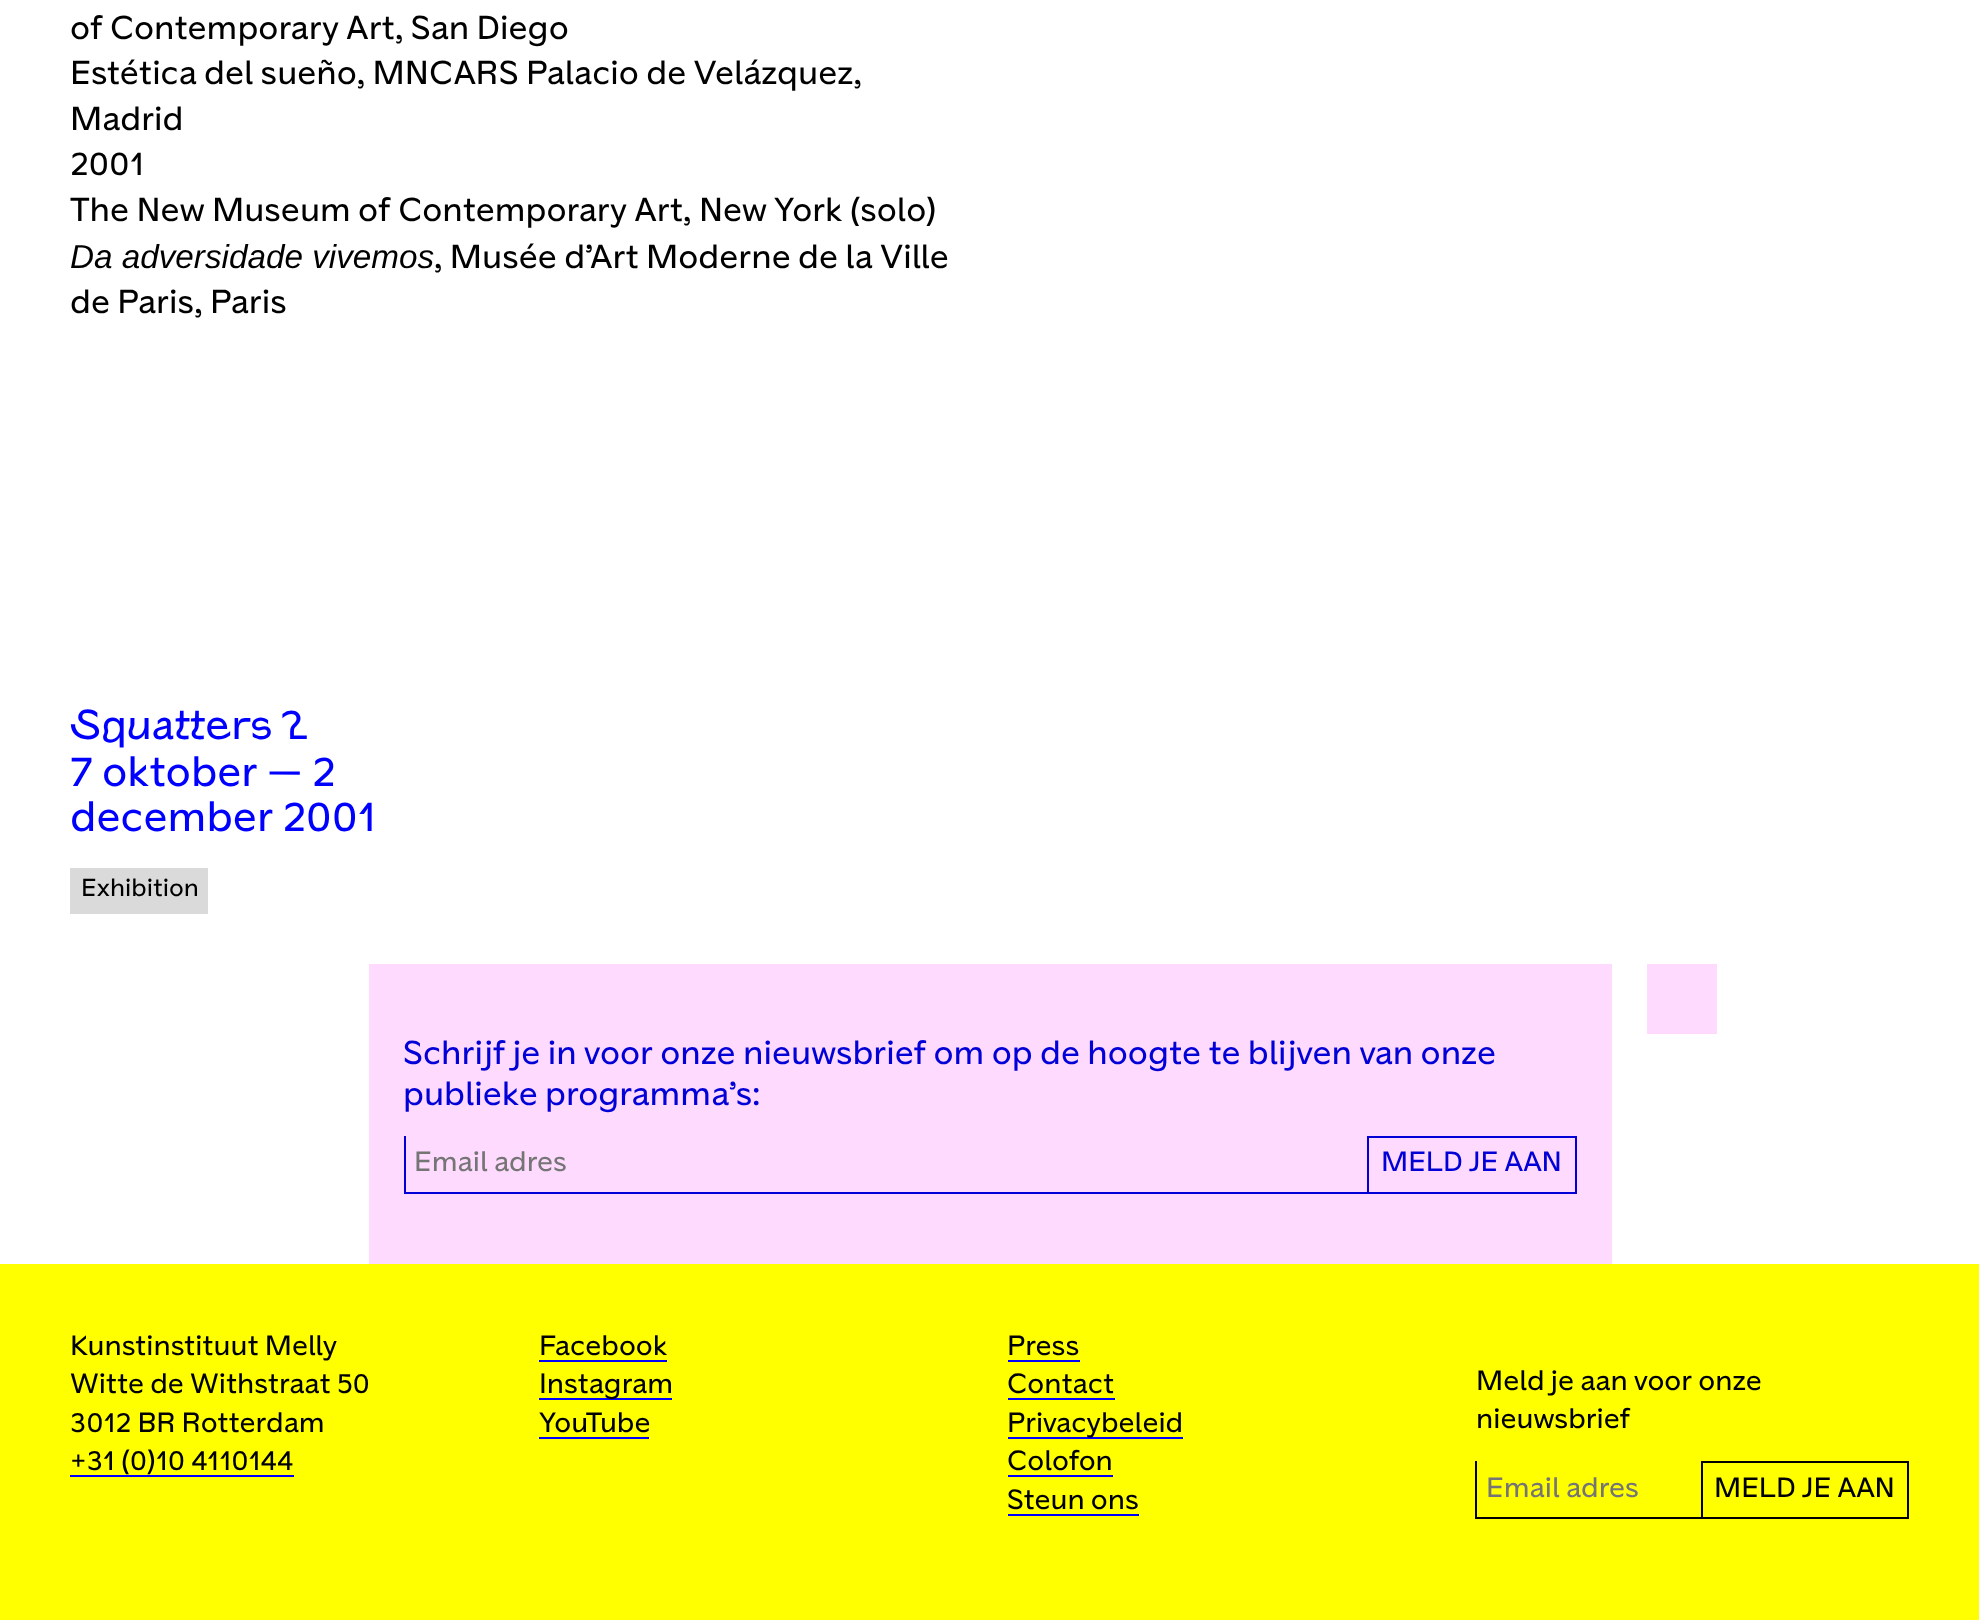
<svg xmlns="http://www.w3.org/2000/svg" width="1979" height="1620">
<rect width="100%" height="100%" fill="#fff"/>
<text x="70" y="39" style="font-family:'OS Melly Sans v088';font-size:33.25px;fill:#000">of Contemporary Art, San Diego</text>
<text x="70" y="84" style="font-family:'OS Melly Sans v088';font-size:33.25px;fill:#000">Estética del sueño, MNCARS Palacio de Velázquez,</text>
<text x="70" y="130" style="font-family:'OS Melly Sans v088';font-size:33.25px;fill:#000">Madrid</text>
<text x="70" y="175" style="font-family:'OS Melly Sans v088';font-size:33.25px;fill:#000">2001</text>
<text x="70" y="221" style="font-family:'OS Melly Sans v088';font-size:33.25px;fill:#000">The New Museum of Contemporary Art, New York (solo)</text>
<text x="70" y="268" style="font-family:Liberation Sans;font-size:33.25px;font-style:italic;fill:#000">Da adversidade vivemos</text>
<text x="434" y="268" style="font-family:'OS Melly Sans v088';font-size:33.25px;fill:#000">, Musée d’Art Moderne de la Ville</text>
<text x="70" y="313" style="font-family:'OS Melly Sans v088';font-size:33.25px;fill:#000">de Paris, Paris</text>
<text x="70" y="739" style="font-family:'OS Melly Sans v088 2';font-size:42px;fill:#00f">Squatters 2</text>
<text x="70" y="786" style="font-family:'OS Melly Sans v088';font-size:42px;fill:#00f">7 oktober — 2</text>
<text x="70" y="831" style="font-family:'OS Melly Sans v088';font-size:42px;fill:#00f">december 2001</text>
<rect x="70" y="868" width="138" height="46" fill="#dadada"/>
<text x="81" y="896" style="font-family:'OS Melly Sans v088';font-size:24.5px;fill:#000">Exhibition</text>
<rect x="1647" y="964" width="70" height="70" fill="#fedafe"/>
<rect x="369" y="964" width="1243" height="300" fill="#fedafe"/>
<text x="403" y="1064" style="font-family:'OS Melly Sans v088';font-size:33.25px;fill:#0000d7">Schrijf je in voor onze nieuwsbrief om op de hoogte te blijven van onze</text>
<text x="403" y="1105" style="font-family:'OS Melly Sans v088';font-size:33.25px;fill:#0000d7">publieke programma’s:</text>
<rect x="404" y="1192" width="963" height="2" fill="#0000d7"/>
<rect x="404" y="1136" width="2" height="58" fill="#0000d7"/>
<text x="414" y="1171" style="font-family:'OS Melly Sans v088';font-size:28px;fill:#757575">Email adres</text>
<rect x="1368" y="1137" width="208" height="56" fill="none" stroke="#0000d7" stroke-width="2"/>
<text x="1381" y="1171" style="font-family:'OS Melly Sans v088';font-size:28px;fill:#0000d7">MELD JE AAN</text>
<rect y="1264" width="1979" height="356" fill="#ff0"/>
<text x="70" y="1355" style="font-family:'OS Melly Sans v088';font-size:28px;fill:#000">Kunstinstituut Melly</text>
<text x="70" y="1393" style="font-family:'OS Melly Sans v088';font-size:28px;fill:#000">Witte de Withstraat 50</text>
<text x="70" y="1432" style="font-family:'OS Melly Sans v088';font-size:28px;fill:#000">3012 BR Rotterdam</text>
<text x="70" y="1470" style="font-family:'OS Melly Sans v088';font-size:28px;fill:#000">+31 (0)10 4110144</text>
<rect x="70" y="1475" width="224" height="2" fill="#00f"/>
<text x="539" y="1355" style="font-family:'OS Melly Sans v088';font-size:28px;fill:#000">Facebook</text>
<rect x="539" y="1360" width="128" height="2" fill="#00f"/>
<rect x="539" y="1398" width="133" height="2" fill="#00f"/>
<text x="539" y="1393" style="font-family:'OS Melly Sans v088';font-size:28px;fill:#000">Instagram</text>
<text x="539" y="1432" style="font-family:'OS Melly Sans v088';font-size:28px;fill:#000">YouTube</text>
<rect x="539" y="1437" width="110" height="2" fill="#00f"/>
<text x="1007" y="1355" style="font-family:'OS Melly Sans v088';font-size:28px;fill:#000">Press</text>
<rect x="1008" y="1360" width="72" height="2" fill="#00f"/>
<text x="1007" y="1393" style="font-family:'OS Melly Sans v088';font-size:28px;fill:#000">Contact</text>
<rect x="1008" y="1398" width="107" height="2" fill="#00f"/>
<rect x="1008" y="1437" width="175" height="2" fill="#00f"/>
<text x="1007" y="1432" style="font-family:'OS Melly Sans v088';font-size:28px;fill:#000">Privacybeleid</text>
<text x="1007" y="1470" style="font-family:'OS Melly Sans v088';font-size:28px;fill:#000">Colofon</text>
<rect x="1008" y="1475" width="105" height="2" fill="#00f"/>
<text x="1007" y="1509" style="font-family:'OS Melly Sans v088';font-size:28px;fill:#000">Steun ons</text>
<rect x="1008" y="1514" width="131" height="2" fill="#00f"/>
<text x="1476" y="1390" style="font-family:'OS Melly Sans v088';font-size:28px;fill:#000">Meld je aan voor onze</text>
<text x="1476" y="1428" style="font-family:'OS Melly Sans v088';font-size:28px;fill:#000">nieuwsbrief</text>
<rect x="1475" y="1517" width="226" height="2" fill="#000"/>
<rect x="1475" y="1461" width="2" height="58" fill="#000"/>
<text x="1486" y="1497" style="font-family:'OS Melly Sans v088';font-size:28px;fill:#757575">Email adres</text>
<rect x="1702" y="1462" width="206" height="56" fill="none" stroke="#000" stroke-width="2"/>
<text x="1714" y="1497" style="font-family:'OS Melly Sans v088';font-size:28px;fill:#000">MELD JE AAN</text>
</svg>
